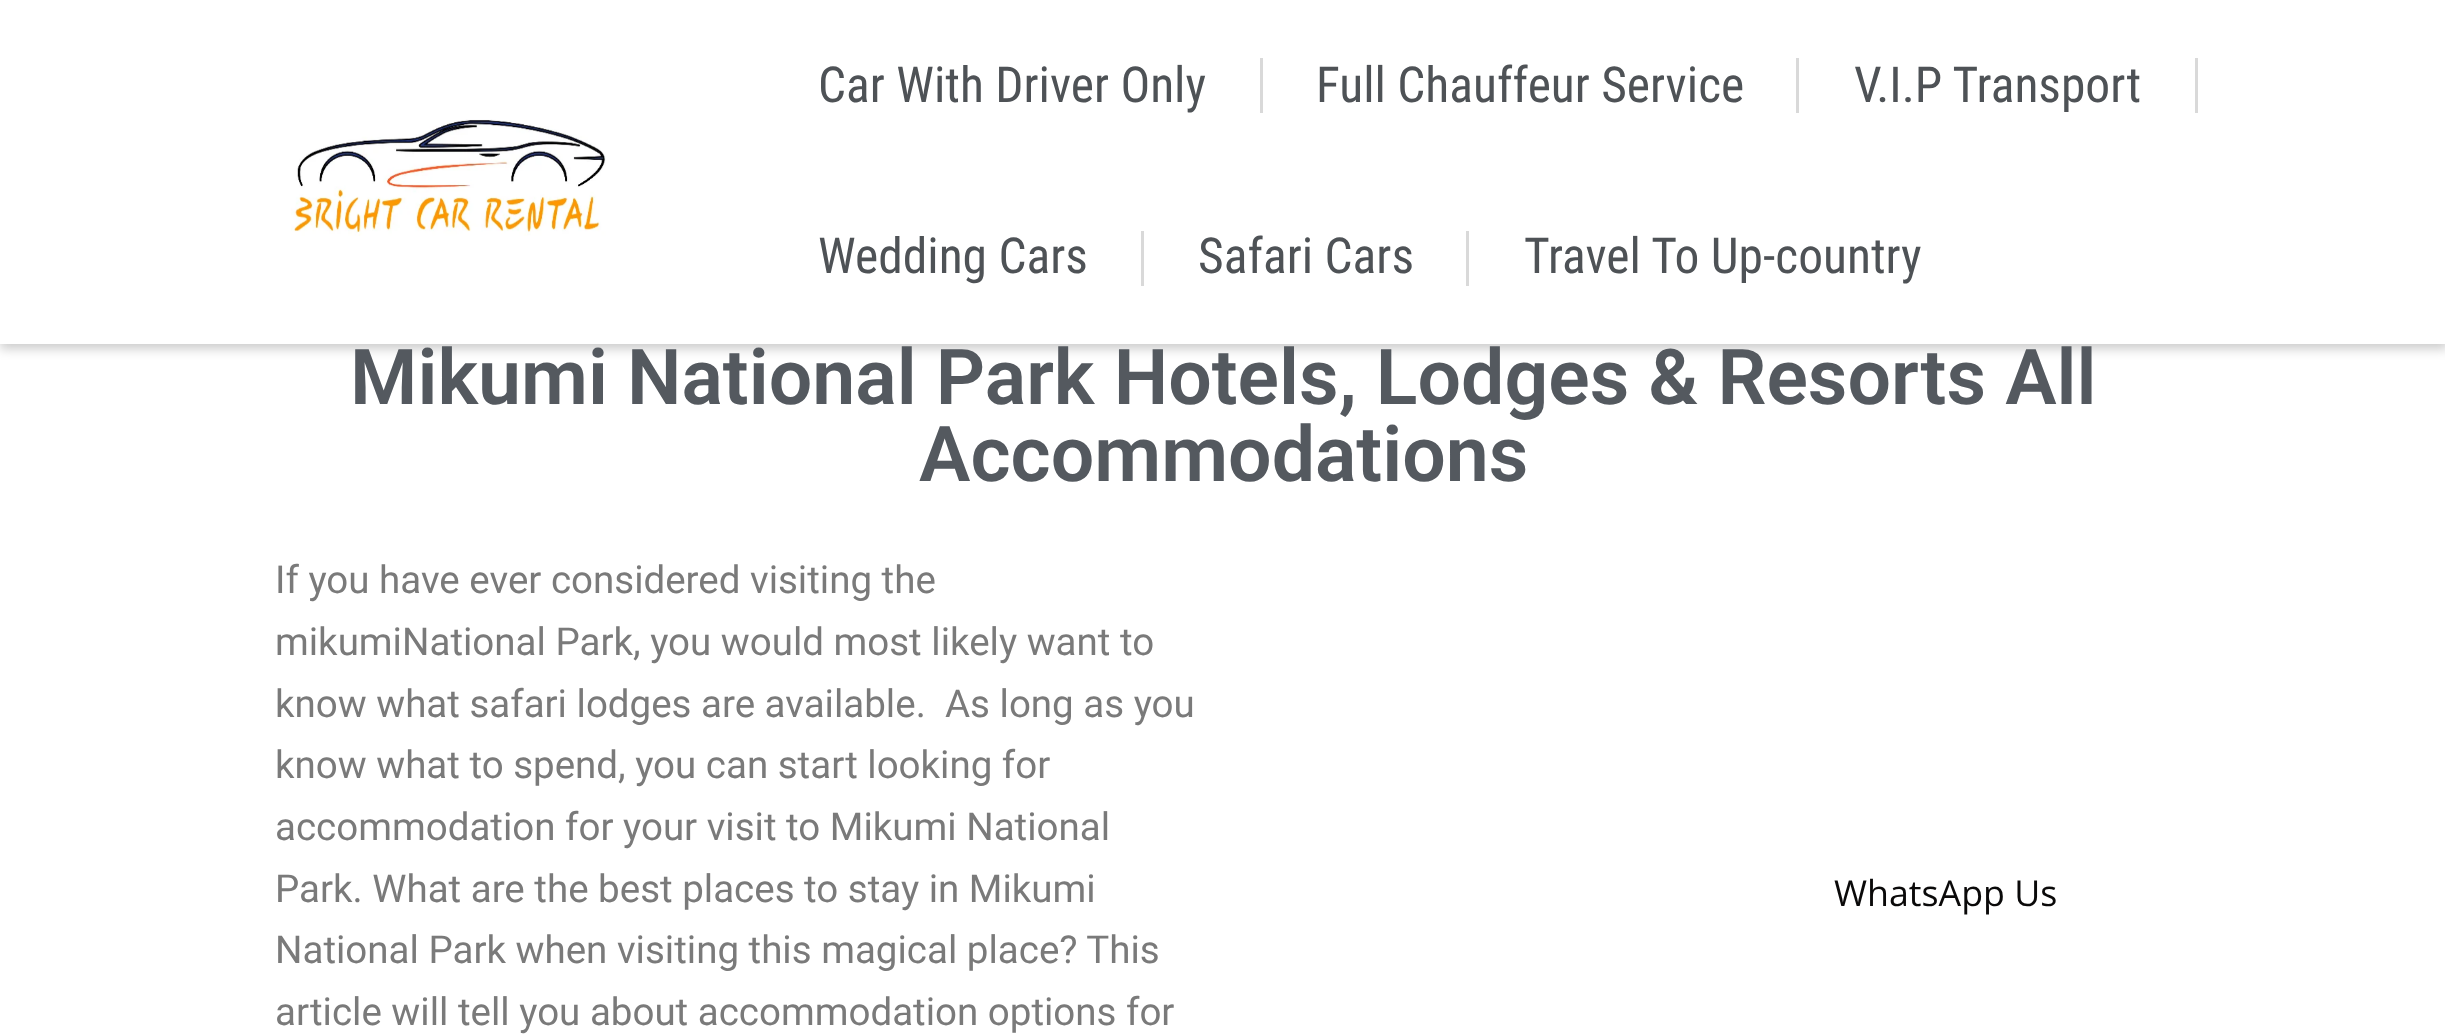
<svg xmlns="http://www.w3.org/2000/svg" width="2445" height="1036">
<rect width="100%" height="100%" fill="#fff"/>
<rect y="6" width="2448" height="343" fill="#00000033" filter="blur(5.5px)"/>
<rect width="2445" height="344" fill="#fff"/>
<image x="291" y="119" width="315" height="117" href="media/1.png"/>
<text x="818" y="102" style="font-family:Roboto Condensed;font-size:49.5px;fill:#4e5256">Car With Driver Only</text>
<rect x="1260" y="58" width="3" height="55" fill="#d9d9d9"/>
<text x="1316" y="102" style="font-family:Roboto Condensed;font-size:49.5px;fill:#4e5256">Full Chauffeur Service</text>
<rect x="1796" y="58" width="3" height="55" fill="#d9d9d9"/>
<text x="1854" y="102" style="font-family:Roboto Condensed;font-size:49.5px;fill:#4e5256">V.I.P Transport</text>
<rect x="2195" y="58" width="3" height="55" fill="#d9d9d9"/>
<text x="818" y="273" style="font-family:Roboto Condensed;font-size:49.5px;fill:#4e5256">Wedding Cars</text>
<rect x="1141" y="231" width="3" height="55" fill="#d9d9d9"/>
<text x="1198" y="273" style="font-family:Roboto Condensed;font-size:49.5px;fill:#4e5256">Safari Cars</text>
<rect x="1466" y="231" width="3" height="55" fill="#d9d9d9"/>
<text x="1524" y="273" style="font-family:Roboto Condensed;font-size:49.5px;fill:#4e5256">Travel To Up-country</text>
<text x="350" y="404" style="font-family:Roboto;font-size:77px;font-weight:600;fill:#54595f">Mikumi National Park Hotels, Lodges &amp; Resorts All</text>
<text x="919" y="481" style="font-family:Roboto;font-size:77px;font-weight:600;fill:#54595f">Accommodations</text>
<text x="275" y="593" style="font-family:Roboto;font-size:38.5px;fill:#7a7a7a">If you have ever considered visiting the</text>
<text x="275" y="655" style="font-family:Roboto;font-size:38.5px;fill:#7a7a7a">mikumiNational Park, you would most likely want to</text>
<text x="275" y="717" style="font-family:Roboto;font-size:38.5px;fill:#7a7a7a">know what safari lodges are available.</text>
<text x="945" y="717" style="font-family:Roboto;font-size:38.5px;fill:#7a7a7a">As long as you</text>
<text x="275" y="778" style="font-family:Roboto;font-size:38.5px;fill:#7a7a7a">know what to spend, you can start looking for</text>
<text x="275" y="840" style="font-family:Roboto;font-size:38.5px;fill:#7a7a7a">accommodation for your visit to Mikumi National</text>
<text x="275" y="902" style="font-family:Roboto;font-size:38.5px;fill:#7a7a7a">Park. What are the best places to stay in Mikumi</text>
<text x="275" y="963" style="font-family:Roboto;font-size:38.5px;fill:#7a7a7a">National Park when visiting this magical place? This</text>
<text x="275" y="1025" style="font-family:Roboto;font-size:38.5px;fill:#7a7a7a">article will tell you about accommodation options for</text>
<text x="1834" y="906" style="font-family:Open Sans;font-size:35.75px;fill:#0a0909">WhatsApp Us</text>
</svg>
